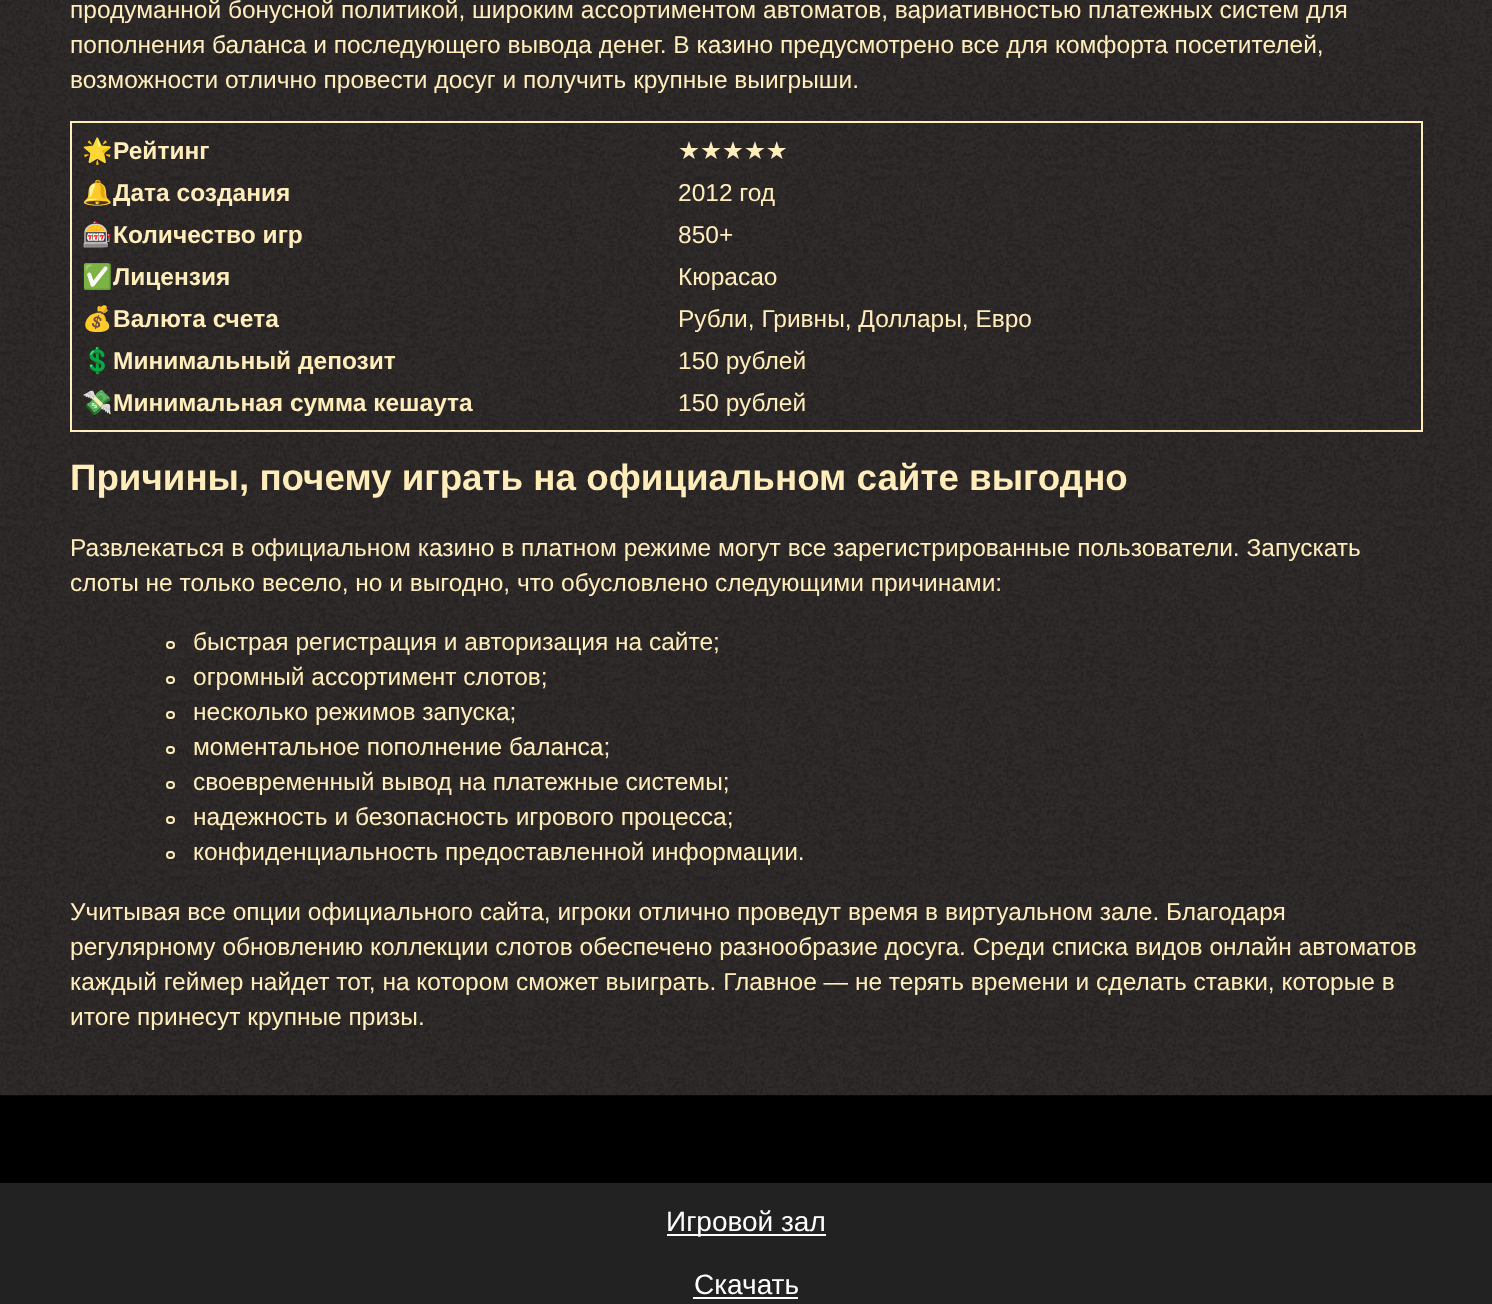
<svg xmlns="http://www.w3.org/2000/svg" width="1492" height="1304">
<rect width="100%" height="100%" fill="#000"/>
<image x="0" y="0" width="1492" height="1096" href="media/1.png"/>
<text x="70" y="18" style="font-family:Liberation Sans;font-size:24.5px;fill:#ffedbc">продуманной бонусной политикой, широким ассортиментом автоматов, вариативностью платежных систем для</text>
<text x="70" y="53" style="font-family:Liberation Sans;font-size:24.5px;fill:#ffedbc">пополнения баланса и последующего вывода денег. В казино предусмотрено все для комфорта посетителей,</text>
<text x="70" y="88" style="font-family:Liberation Sans;font-size:24.5px;fill:#ffedbc">возможности отлично провести досуг и получить крупные выигрыши.</text>
<rect x="71" y="122" width="1351" height="309" fill="none" stroke="#ffedbc" stroke-width="2"/>
<text x="82" y="159" style="font-family:Noto Color Emoji;font-size:24.5px;font-weight:bold;fill:#ffedbc">🌟</text>
<text x="113" y="159" style="font-family:Liberation Sans;font-size:24.5px;font-weight:bold;fill:#ffedbc">Рейтинг</text>
<text x="678" y="159" style="font-family:DejaVu Sans;font-size:24.5px;fill:#ffedbc">★★★★★</text>
<text x="82" y="201" style="font-family:Noto Color Emoji;font-size:24.5px;font-weight:bold;fill:#ffedbc">🔔</text>
<text x="113" y="201" style="font-family:Liberation Sans;font-size:24.5px;font-weight:bold;fill:#ffedbc">Дата создания</text>
<text x="678" y="201" style="font-family:Liberation Sans;font-size:24.5px;fill:#ffedbc">2012 год</text>
<text x="82" y="243" style="font-family:Noto Color Emoji;font-size:24.5px;font-weight:bold;fill:#ffedbc">🎰</text>
<text x="113" y="243" style="font-family:Liberation Sans;font-size:24.5px;font-weight:bold;fill:#ffedbc">Количество игр</text>
<text x="678" y="243" style="font-family:Liberation Sans;font-size:24.5px;fill:#ffedbc">850+</text>
<text x="82" y="285" style="font-family:Noto Color Emoji;font-size:24.5px;font-weight:bold;fill:#ffedbc">✅</text>
<text x="113" y="285" style="font-family:Liberation Sans;font-size:24.5px;font-weight:bold;fill:#ffedbc">Лицензия</text>
<text x="678" y="285" style="font-family:Liberation Sans;font-size:24.5px;fill:#ffedbc">Кюрасао</text>
<text x="82" y="327" style="font-family:Noto Color Emoji;font-size:24.5px;font-weight:bold;fill:#ffedbc">💰</text>
<text x="113" y="327" style="font-family:Liberation Sans;font-size:24.5px;font-weight:bold;fill:#ffedbc">Валюта счета</text>
<text x="678" y="327" style="font-family:Liberation Sans;font-size:24.5px;fill:#ffedbc">Рубли, Гривны, Доллары, Евро</text>
<text x="82" y="369" style="font-family:Noto Color Emoji;font-size:24.5px;font-weight:bold;fill:#ffedbc">💲</text>
<text x="113" y="369" style="font-family:Liberation Sans;font-size:24.5px;font-weight:bold;fill:#ffedbc">Минимальный депозит</text>
<text x="678" y="369" style="font-family:Liberation Sans;font-size:24.5px;fill:#ffedbc">150 рублей</text>
<text x="82" y="411" style="font-family:Noto Color Emoji;font-size:24.5px;font-weight:bold;fill:#ffedbc">💸</text>
<text x="113" y="411" style="font-family:Liberation Sans;font-size:24.5px;font-weight:bold;fill:#ffedbc">Минимальная сумма кешаута</text>
<text x="678" y="411" style="font-family:Liberation Sans;font-size:24.5px;fill:#ffedbc">150 рублей</text>
<text x="70" y="490" style="font-family:Liberation Sans;font-size:36.75px;font-weight:bold;fill:#ffedbc">Причины, почему играть на официальном сайте выгодно</text>
<text x="70" y="556" style="font-family:Liberation Sans;font-size:24.5px;fill:#ffedbc">Развлекаться в официальном казино в платном режиме могут все зарегистрированные пользователи. Запускать</text>
<text x="70" y="591" style="font-family:Liberation Sans;font-size:24.5px;fill:#ffedbc">слоты не только весело, но и выгодно, что обусловлено следующими причинами:</text>
<rect x="167" y="642" width="7" height="6" rx="3" fill="none" stroke="#ffedbc" stroke-width="2"/>
<text x="193" y="650" style="font-family:Liberation Sans;font-size:24.5px;fill:#ffedbc">быстрая регистрация и авторизация на сайте;</text>
<rect x="167" y="677" width="7" height="6" rx="3" fill="none" stroke="#ffedbc" stroke-width="2"/>
<text x="193" y="685" style="font-family:Liberation Sans;font-size:24.5px;fill:#ffedbc">огромный ассортимент слотов;</text>
<rect x="167" y="712" width="7" height="6" rx="3" fill="none" stroke="#ffedbc" stroke-width="2"/>
<text x="193" y="720" style="font-family:Liberation Sans;font-size:24.5px;fill:#ffedbc">несколько режимов запуска;</text>
<rect x="167" y="747" width="7" height="6" rx="3" fill="none" stroke="#ffedbc" stroke-width="2"/>
<text x="193" y="755" style="font-family:Liberation Sans;font-size:24.5px;fill:#ffedbc">моментальное пополнение баланса;</text>
<rect x="167" y="782" width="7" height="6" rx="3" fill="none" stroke="#ffedbc" stroke-width="2"/>
<text x="193" y="790" style="font-family:Liberation Sans;font-size:24.5px;fill:#ffedbc">своевременный вывод на платежные системы;</text>
<rect x="167" y="817" width="7" height="6" rx="3" fill="none" stroke="#ffedbc" stroke-width="2"/>
<text x="193" y="825" style="font-family:Liberation Sans;font-size:24.5px;fill:#ffedbc">надежность и безопасность игрового процесса;</text>
<rect x="167" y="852" width="7" height="6" rx="3" fill="none" stroke="#ffedbc" stroke-width="2"/>
<text x="193" y="860" style="font-family:Liberation Sans;font-size:24.5px;fill:#ffedbc">конфиденциальность предоставленной информации.</text>
<text x="70" y="920" style="font-family:Liberation Sans;font-size:24.5px;fill:#ffedbc">Учитывая все опции официального сайта, игроки отлично проведут время в виртуальном зале. Благодаря</text>
<text x="70" y="955" style="font-family:Liberation Sans;font-size:24.5px;fill:#ffedbc">регулярному обновлению коллекции слотов обеспечено разнообразие досуга. Среди списка видов онлайн автоматов</text>
<text x="70" y="990" style="font-family:Liberation Sans;font-size:24.5px;fill:#ffedbc">каждый геймер найдет тот, на котором сможет выиграть. Главное — не терять времени и сделать ставки, которые в</text>
<text x="70" y="1025" style="font-family:Liberation Sans;font-size:24.5px;fill:#ffedbc">итоге принесут крупные призы.</text>
<rect y="1183" width="1492" height="121" fill="#222"/>
<rect x="667" y="1234" width="159" height="2" fill="#fff"/>
<text x="666" y="1231" style="font-family:Liberation Sans;font-size:28px;fill:#fff">Игровой зал</text>
<text x="694" y="1294" style="font-family:Liberation Sans;font-size:28px;fill:#fff">Скачать</text>
<rect x="693" y="1297" width="105" height="2" fill="#fff"/>
</svg>
